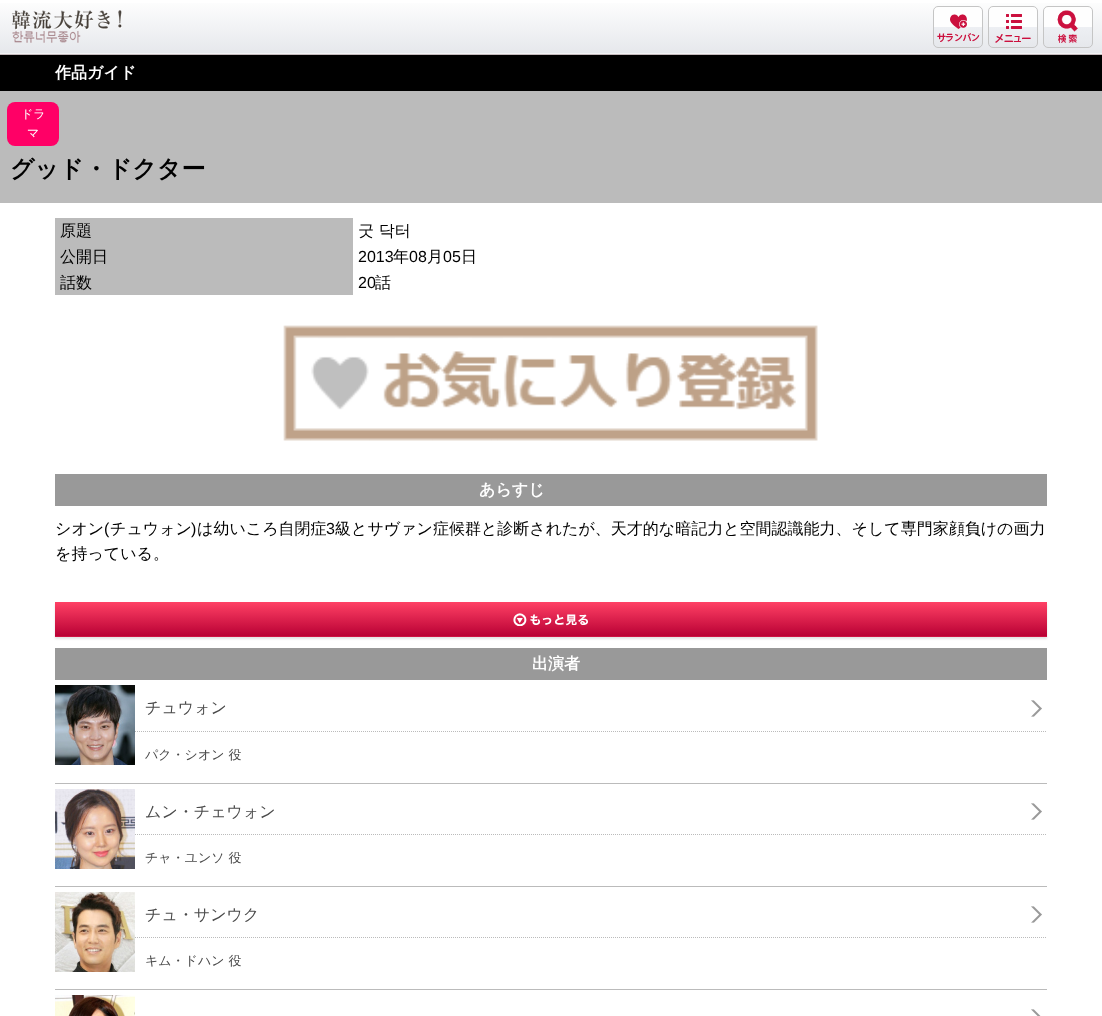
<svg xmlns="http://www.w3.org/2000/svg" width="1102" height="1016">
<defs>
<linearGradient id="g1" gradientUnits="userSpaceOnUse" x1="551" y1="0" x2="551" y2="54"><stop offset="0" stop-color="#fefefe"/><stop offset="0.98" stop-color="#e6e8ec"/><stop offset="1" stop-color="#fefefe"/></linearGradient>
<clipPath id="clip1"><rect x="933" y="6" width="50" height="42" rx="5"/></clipPath>
<linearGradient id="g2" gradientUnits="userSpaceOnUse" x1="958" y1="7" x2="958" y2="47"><stop offset="0" stop-color="#fefefe"/><stop offset="0.5" stop-color="#fefefe"/><stop offset="0.51" stop-color="#edeff3"/><stop offset="1" stop-color="#e6e8ec"/></linearGradient>
<clipPath id="clip2"><rect x="988" y="6" width="50" height="42" rx="5"/></clipPath>
<linearGradient id="g3" gradientUnits="userSpaceOnUse" x1="1013" y1="7" x2="1013" y2="47"><stop offset="0" stop-color="#fefefe"/><stop offset="0.5" stop-color="#fefefe"/><stop offset="0.51" stop-color="#edeff3"/><stop offset="1" stop-color="#e6e8ec"/></linearGradient>
<clipPath id="clip3"><rect x="1043" y="6" width="50" height="42" rx="5"/></clipPath>
<linearGradient id="g4" gradientUnits="userSpaceOnUse" x1="1068" y1="7" x2="1068" y2="47"><stop offset="0" stop-color="#fefefe"/><stop offset="0.5" stop-color="#fefefe"/><stop offset="0.51" stop-color="#edeff3"/><stop offset="1" stop-color="#e6e8ec"/></linearGradient>
<linearGradient id="g5" gradientUnits="userSpaceOnUse" x1="551" y1="602" x2="551" y2="637"><stop offset="0" stop-color="#ff4165"/><stop offset="0.98" stop-color="#b80034"/><stop offset="1" stop-color="#ff4165"/></linearGradient>
</defs>
<rect width="100%" height="100%" fill="#fff"/>
<rect y="3" width="1102" height="51" fill="url(#g1)"/>
<rect y="54" width="1102" height="1" fill="#c5babd"/>
<image x="12" y="10" width="110" height="33" href="media/1.png"/>
<g clip-path="url(#clip1)">
<rect x="933" y="7" width="50" height="40" fill="url(#g2)"/>
</g>
<rect x="933.5" y="6.5" width="49" height="41" rx="4.5" fill="none" stroke="#c5c5c5"/>
<image x="937" y="14" width="43" height="28" href="media/2.png"/>
<g clip-path="url(#clip2)">
<rect x="988" y="7" width="50" height="40" fill="url(#g3)"/>
</g>
<rect x="988.5" y="6.5" width="49" height="41" rx="4.5" fill="none" stroke="#c5c5c5"/>
<image x="995" y="14" width="36" height="29" href="media/3.png"/>
<g clip-path="url(#clip3)">
<rect x="1043" y="7" width="50" height="40" fill="url(#g4)"/>
</g>
<rect x="1043.5" y="6.5" width="49" height="41" rx="4.5" fill="none" stroke="#c5c5c5"/>
<image x="1057" y="10" width="21" height="33" href="media/4.png"/>
<rect y="55" width="1102" height="36" fill="#000"/>
<text x="55" y="78" style="font-family:WenQuanYi Zen Hei;font-size:16px;font-weight:bold;fill:#fff">作品ガイド</text>
<rect y="91" width="1102" height="112" fill="#bbb"/>
<rect x="7" y="102" width="52" height="44" rx="8" fill="#f06"/>
<text x="21" y="118" style="font-family:WenQuanYi Zen Hei;font-size:12px;font-weight:500;fill:#fff">ドラ</text>
<text x="27" y="137" style="font-family:WenQuanYi Zen Hei;font-size:12px;font-weight:500;fill:#fff">マ</text>
<text x="10" y="177" style="font-family:WenQuanYi Zen Hei;font-size:24px;font-weight:bold;fill:#000">グッド・ドクター</text>
<rect x="55" y="218" width="298" height="77" fill="#bbb"/>
<text x="60" y="236" style="font-family:WenQuanYi Zen Hei;font-size:16px;font-weight:500;fill:#000">原題</text>
<text x="358" y="236" style="font-family:WenQuanYi Zen Hei;font-size:16px;font-weight:500;fill:#000">굿 닥터</text>
<text x="60" y="262" style="font-family:WenQuanYi Zen Hei;font-size:16px;font-weight:500;fill:#000">公開日</text>
<text x="358" y="262" style="font-family:Liberation Sans;font-size:16px;fill:#000">2013</text>
<text x="393" y="262" style="font-family:WenQuanYi Zen Hei;font-size:16px;font-weight:500;fill:#000">年</text>
<text x="409" y="262" style="font-family:Liberation Sans;font-size:16px;fill:#000">08</text>
<text x="427" y="262" style="font-family:WenQuanYi Zen Hei;font-size:16px;font-weight:500;fill:#000">月</text>
<text x="443" y="262" style="font-family:Liberation Sans;font-size:16px;fill:#000">05</text>
<text x="461" y="262" style="font-family:WenQuanYi Zen Hei;font-size:16px;font-weight:500;fill:#000">日</text>
<text x="60" y="288" style="font-family:WenQuanYi Zen Hei;font-size:16px;font-weight:500;fill:#000">話数</text>
<text x="358" y="288" style="font-family:Liberation Sans;font-size:16px;fill:#000">20</text>
<text x="375" y="288" style="font-family:WenQuanYi Zen Hei;font-size:16px;font-weight:500;fill:#000">話</text>
<image x="283" y="325" width="535" height="116" href="media/5.png"/>
<rect x="55" y="474" width="992" height="32" fill="#999"/>
<text x="479" y="495" style="font-family:WenQuanYi Zen Hei;font-size:16px;font-weight:bold;fill:#fff">あらすじ</text>
<text x="55" y="534" style="font-family:WenQuanYi Zen Hei;font-size:16px;font-weight:500;fill:#000">シオン</text>
<text x="104" y="534" style="font-family:Liberation Sans;font-size:16px;fill:#000">(</text>
<text x="110" y="534" style="font-family:WenQuanYi Zen Hei;font-size:16px;font-weight:500;fill:#000">チュウォン</text>
<text x="191" y="534" style="font-family:Liberation Sans;font-size:16px;fill:#000">)</text>
<text x="197" y="534" style="font-family:WenQuanYi Zen Hei;font-size:16px;font-weight:500;fill:#000">は幼いころ自閉症</text>
<text x="326" y="534" style="font-family:Liberation Sans;font-size:16px;fill:#000">3</text>
<text x="335" y="534" style="font-family:WenQuanYi Zen Hei;font-size:16px;font-weight:500;fill:#000">級とサヴァン症候群と診断されたが、天才的な暗記力と空間認識能力、そして専門家顔負けの画力</text>
<text x="55" y="559" style="font-family:WenQuanYi Zen Hei;font-size:16px;font-weight:500;fill:#000">を持っている。</text>
<rect x="55" y="604" width="992" height="35" fill="#e3e3e3" filter="blur(1px)"/>
<rect x="55" y="602" width="992" height="35" fill="url(#g5)"/>
<image x="513" y="613" width="75" height="13" href="media/6.png"/>
<rect x="55" y="648" width="992" height="32" fill="#999"/>
<text x="532" y="669" style="font-family:WenQuanYi Zen Hei;font-size:16px;font-weight:bold;fill:#fff">出演者</text>
<rect x="55" y="783" width="992" height="1" fill="#bbb"/>
<path d="M55 731.5h992" fill="none" stroke="#bbb" stroke-dasharray="1 1"/>
<image x="55" y="685" width="80" height="80" href="media/7.png"/>
<image x="1031" y="700" width="11" height="17" href="media/8.png"/>
<text x="145" y="713" style="font-family:WenQuanYi Zen Hei;font-size:16px;font-weight:500;fill:#4a4a4a">チュウォン</text>
<text x="145" y="759" style="font-family:WenQuanYi Zen Hei;font-size:13px;font-weight:500;fill:#4a4a4a">パク・シオン 役</text>
<rect x="55" y="886" width="992" height="1" fill="#bbb"/>
<path d="M55 834.5h992" fill="none" stroke="#bbb" stroke-dasharray="1 1"/>
<image x="55" y="789" width="80" height="80" href="media/9.png"/>
<image x="1031" y="803" width="11" height="17" href="media/8.png"/>
<text x="145" y="817" style="font-family:WenQuanYi Zen Hei;font-size:16px;font-weight:500;fill:#4a4a4a">ムン・チェウォン</text>
<text x="145" y="862" style="font-family:WenQuanYi Zen Hei;font-size:13px;font-weight:500;fill:#4a4a4a">チャ・ユンソ 役</text>
<rect x="55" y="989" width="992" height="1" fill="#bbb"/>
<path d="M55 937.5h992" fill="none" stroke="#bbb" stroke-dasharray="1 1"/>
<image x="55" y="892" width="80" height="80" href="media/10.png"/>
<image x="1031" y="906" width="11" height="17" href="media/8.png"/>
<text x="145" y="920" style="font-family:WenQuanYi Zen Hei;font-size:16px;font-weight:500;fill:#4a4a4a">チュ・サンウク</text>
<text x="145" y="965" style="font-family:WenQuanYi Zen Hei;font-size:13px;font-weight:500;fill:#4a4a4a">キム・ドハン 役</text>
<image x="55" y="995" width="80" height="21" href="media/11.png"/>
<image x="1031" y="1009" width="10" height="7" href="media/12.png"/>
</svg>
